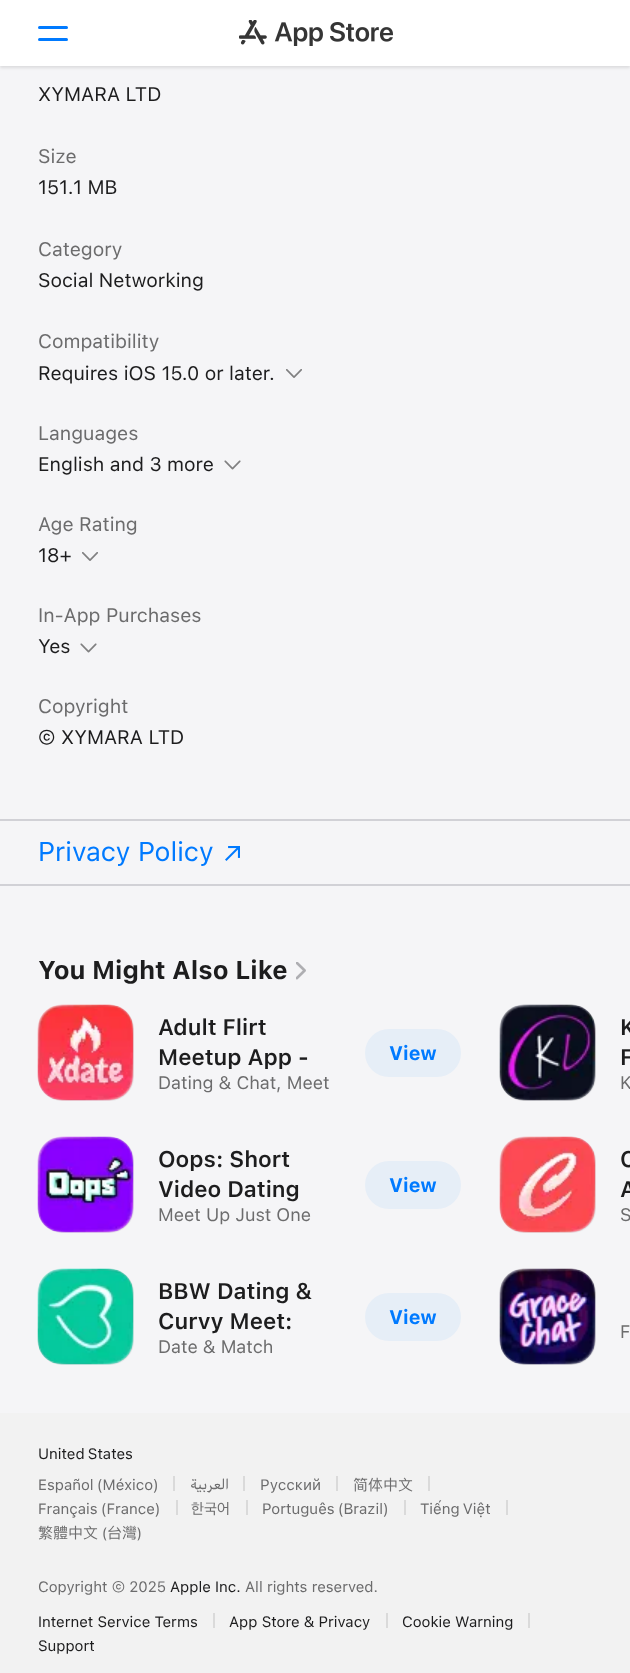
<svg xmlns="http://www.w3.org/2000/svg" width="630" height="1673">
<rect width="100%" height="100%" fill="#f5f5f7"/>
<rect y="2" width="630" height="66" fill="#0000001a" filter="blur(1.5px)"/>
<rect width="630" height="66" fill="#fff"/>
<rect x="38" y="26" width="30" height="3" rx="1.5" fill="#007aff"/>
<rect x="38" y="38" width="30" height="3" rx="1.5" fill="#007aff"/>
<image x="239" y="20" width="154" height="26" href="media/1.png"/>
<text x="38" y="101" style="font-family:SF;font-size:19.5px;fill:#1d1d1e">XYMARA LTD</text>
<text x="38" y="163" style="font-family:SF;font-size:19.5px;fill:#6c6c6d">Size</text>
<text x="38" y="194" style="font-family:SF;font-size:19.5px;fill:#1d1d1e">151.1 MB</text>
<text x="38" y="256" style="font-family:SF;font-size:19.5px;fill:#6c6c6d">Category</text>
<text x="38" y="287" style="font-family:SF;font-size:19.5px;fill:#1d1d1e">Social Networking</text>
<text x="38" y="348" style="font-family:SF;font-size:19.5px;fill:#6c6c6d">Compatibility</text>
<text x="38" y="380" style="font-family:SF;font-size:19.5px;fill:#1d1d1e">Requires iOS 15.0 or later.</text>
<image x="286" y="369" width="16" height="9" href="media/2.png"/>
<text x="38" y="440" style="font-family:SF;font-size:19.5px;fill:#6c6c6d">Languages</text>
<text x="38" y="471" style="font-family:SF;font-size:19.5px;fill:#1d1d1e">English and 3 more</text>
<image x="224" y="460" width="17" height="10" href="media/3.png"/>
<text x="38" y="531" style="font-family:SF;font-size:19.5px;fill:#6c6c6d">Age Rating</text>
<text x="38" y="562" style="font-family:SF;font-size:19.5px;fill:#1d1d1e">18+</text>
<image x="82" y="552" width="16" height="9" href="media/2.png"/>
<text x="38" y="622" style="font-family:SF;font-size:19.5px;fill:#6c6c6d">In-App Purchases</text>
<text x="38" y="653" style="font-family:SF;font-size:19.5px;fill:#1d1d1e">Yes</text>
<image x="80" y="643" width="17" height="10" href="media/3.png"/>
<text x="38" y="713" style="font-family:SF;font-size:19.5px;fill:#6c6c6d">Copyright</text>
<text x="38" y="744" style="font-family:SF;font-size:19.5px;fill:#1d1d1e">© XYMARA LTD</text>
<rect y="819" width="630" height="2" fill="#d1d1d6"/>
<rect y="884" width="630" height="2" fill="#d1d1d6"/>
<text x="38" y="861" style="font-family:'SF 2';font-size:27px;fill:#007aff">Privacy Policy</text>
<image x="225" y="846" width="15" height="15" href="media/4.png"/>
<text x="38" y="979" style="font-family:SF;font-size:25.5px;font-weight:bold;fill:#1d1d1e">You Might Also Like</text>
<image x="296" y="962" width="10" height="18" href="media/5.png"/>
<image x="37" y="1004" width="97" height="97" href="media/6.png"/>
<rect x="39" y="1006" width="94" height="94" rx="23" fill="none" stroke="#8080801a" stroke-width="2"/>
<text x="158" y="1035" style="font-family:SF;font-size:22.5px;font-weight:600;fill:#1d1d1e">Adult Flirt</text>
<text x="158" y="1065" style="font-family:SF;font-size:22.5px;font-weight:600;fill:#1d1d1e">Meetup App -</text>
<text x="158" y="1089" style="font-family:SF;font-size:18px;fill:#6c6c6d">Dating &amp; Chat, Meet</text>
<rect x="365" y="1029" width="96" height="48" rx="24" fill="#e6eef7"/>
<text x="389" y="1060" style="font-family:SF;font-size:19.5px;font-weight:bold;fill:#007aff">View</text>
<image x="499" y="1004" width="97" height="97" href="media/7.png"/>
<rect x="501" y="1006" width="94" height="94" rx="23" fill="none" stroke="#8080801a" stroke-width="2"/>
<text x="620" y="1035" style="font-family:SF;font-size:22.5px;font-weight:600;fill:#1d1d1e">K</text>
<text x="620" y="1065" style="font-family:SF;font-size:22.5px;font-weight:600;fill:#1d1d1e">F</text>
<text x="620" y="1089" style="font-family:SF;font-size:18px;fill:#6c6c6d">K</text>
<image x="37" y="1136" width="97" height="97" href="media/8.png"/>
<rect x="39" y="1138" width="94" height="94" rx="23" fill="none" stroke="#8080801a" stroke-width="2"/>
<text x="158" y="1167" style="font-family:SF;font-size:22.5px;font-weight:600;fill:#1d1d1e">Oops: Short</text>
<text x="158" y="1197" style="font-family:SF;font-size:22.5px;font-weight:600;fill:#1d1d1e">Video Dating</text>
<text x="158" y="1221" style="font-family:SF;font-size:18px;fill:#6c6c6d">Meet Up Just One</text>
<rect x="365" y="1161" width="96" height="48" rx="24" fill="#e6eef7"/>
<text x="389" y="1192" style="font-family:SF;font-size:19.5px;font-weight:bold;fill:#007aff">View</text>
<image x="499" y="1136" width="97" height="97" href="media/9.png"/>
<rect x="501" y="1138" width="94" height="94" rx="23" fill="none" stroke="#8080801a" stroke-width="2"/>
<text x="620" y="1167" style="font-family:SF;font-size:22.5px;font-weight:600;fill:#1d1d1e">C</text>
<text x="620" y="1197" style="font-family:SF;font-size:22.5px;font-weight:600;fill:#1d1d1e">A</text>
<text x="620" y="1221" style="font-family:SF;font-size:18px;fill:#6c6c6d">S</text>
<image x="37" y="1268" width="97" height="97" href="media/10.png"/>
<rect x="39" y="1270" width="94" height="94" rx="23" fill="none" stroke="#8080801a" stroke-width="2"/>
<text x="158" y="1299" style="font-family:SF;font-size:22.5px;font-weight:600;fill:#1d1d1e">BBW Dating &amp;</text>
<text x="158" y="1329" style="font-family:SF;font-size:22.5px;font-weight:600;fill:#1d1d1e">Curvy Meet:</text>
<text x="158" y="1353" style="font-family:SF;font-size:18px;fill:#6c6c6d">Date &amp; Match</text>
<rect x="365" y="1293" width="96" height="48" rx="24" fill="#e6eef7"/>
<text x="389" y="1324" style="font-family:SF;font-size:19.5px;font-weight:bold;fill:#007aff">View</text>
<image x="499" y="1268" width="97" height="97" href="media/11.png"/>
<rect x="501" y="1270" width="94" height="94" rx="23" fill="none" stroke="#8080801a" stroke-width="2"/>
<text x="620" y="1338" style="font-family:SF;font-size:18px;fill:#6c6c6d">F</text>
<rect y="1413" width="630" height="260" fill="#f2f2f2"/>
<text x="38" y="1459" word-spacing="-1" style="font-family:SF;font-size:15px;fill:#1d1d1e">United States</text>
<text x="38" y="1490" word-spacing="-1" style="font-family:SF;font-size:15px;fill:#6c6c6d">Español (México)</text>
<rect x="173" y="1476" width="2" height="15" fill="#dadada"/>
<text x="229" y="1490" style="font-family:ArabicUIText;font-size:15px;direction:rtl;fill:#6c6c6d">العربية</text>
<rect x="243" y="1476" width="2" height="15" fill="#dadada"/>
<text x="260" y="1490" style="font-family:SF;font-size:15px;fill:#6c6c6d">Русский</text>
<rect x="336" y="1476" width="2" height="15" fill="#dadada"/>
<text x="353" y="1490" style="font-family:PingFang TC;font-size:15px;fill:#6c6c6d">简体中文</text>
<rect x="428" y="1476" width="2" height="15" fill="#dadada"/>
<text x="38" y="1514" word-spacing="-1" style="font-family:SF;font-size:15px;fill:#6c6c6d">Français (France)</text>
<rect x="176" y="1500" width="2" height="15" fill="#dadada"/>
<text x="191" y="1514" style="font-family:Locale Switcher;font-size:15px;fill:#6c6c6d">한국어</text>
<rect x="246" y="1500" width="2" height="15" fill="#dadada"/>
<text x="262" y="1514" word-spacing="-1" style="font-family:SF;font-size:15px;fill:#6c6c6d">Português (Brazil)</text>
<rect x="404" y="1500" width="2" height="15" fill="#dadada"/>
<text x="420" y="1514" word-spacing="-1" style="font-family:SF;font-size:15px;fill:#6c6c6d">Tiếng Việt</text>
<rect x="506" y="1500" width="2" height="15" fill="#dadada"/>
<text x="38" y="1538" style="font-family:PingFang TC;font-size:15px;fill:#6c6c6d">繁體中文</text>
<text x="102" y="1538" style="font-family:'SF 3';font-size:15px;fill:#6c6c6d">(</text>
<text x="107" y="1538" style="font-family:PingFang TC;font-size:15px;fill:#6c6c6d">台灣</text>
<text x="137" y="1538" style="font-family:'SF 3';font-size:15px;fill:#6c6c6d">)</text>
<text x="38" y="1592" style="font-family:SF;font-size:15px;fill:#6c6c6d">Copyright © 2025</text>
<text x="170" y="1592" style="font-family:SF;font-size:15px;fill:#1d1d1e">Apple Inc.</text>
<text x="245" y="1592" style="font-family:SF;font-size:15px;fill:#6c6c6d">All rights reserved.</text>
<text x="38" y="1627" style="font-family:SF;font-size:15px;fill:#1d1d1e">Internet Service Terms</text>
<rect x="213" y="1613" width="2" height="15" fill="#dadada"/>
<text x="229" y="1627" style="font-family:SF;font-size:15px;fill:#1d1d1e">App Store &amp; Privacy</text>
<rect x="386" y="1613" width="2" height="15" fill="#dadada"/>
<text x="402" y="1627" style="font-family:SF;font-size:15px;fill:#1d1d1e">Cookie Warning</text>
<rect x="528" y="1613" width="2" height="15" fill="#dadada"/>
<text x="38" y="1651" style="font-family:SF;font-size:15px;fill:#1d1d1e">Support</text>
</svg>
